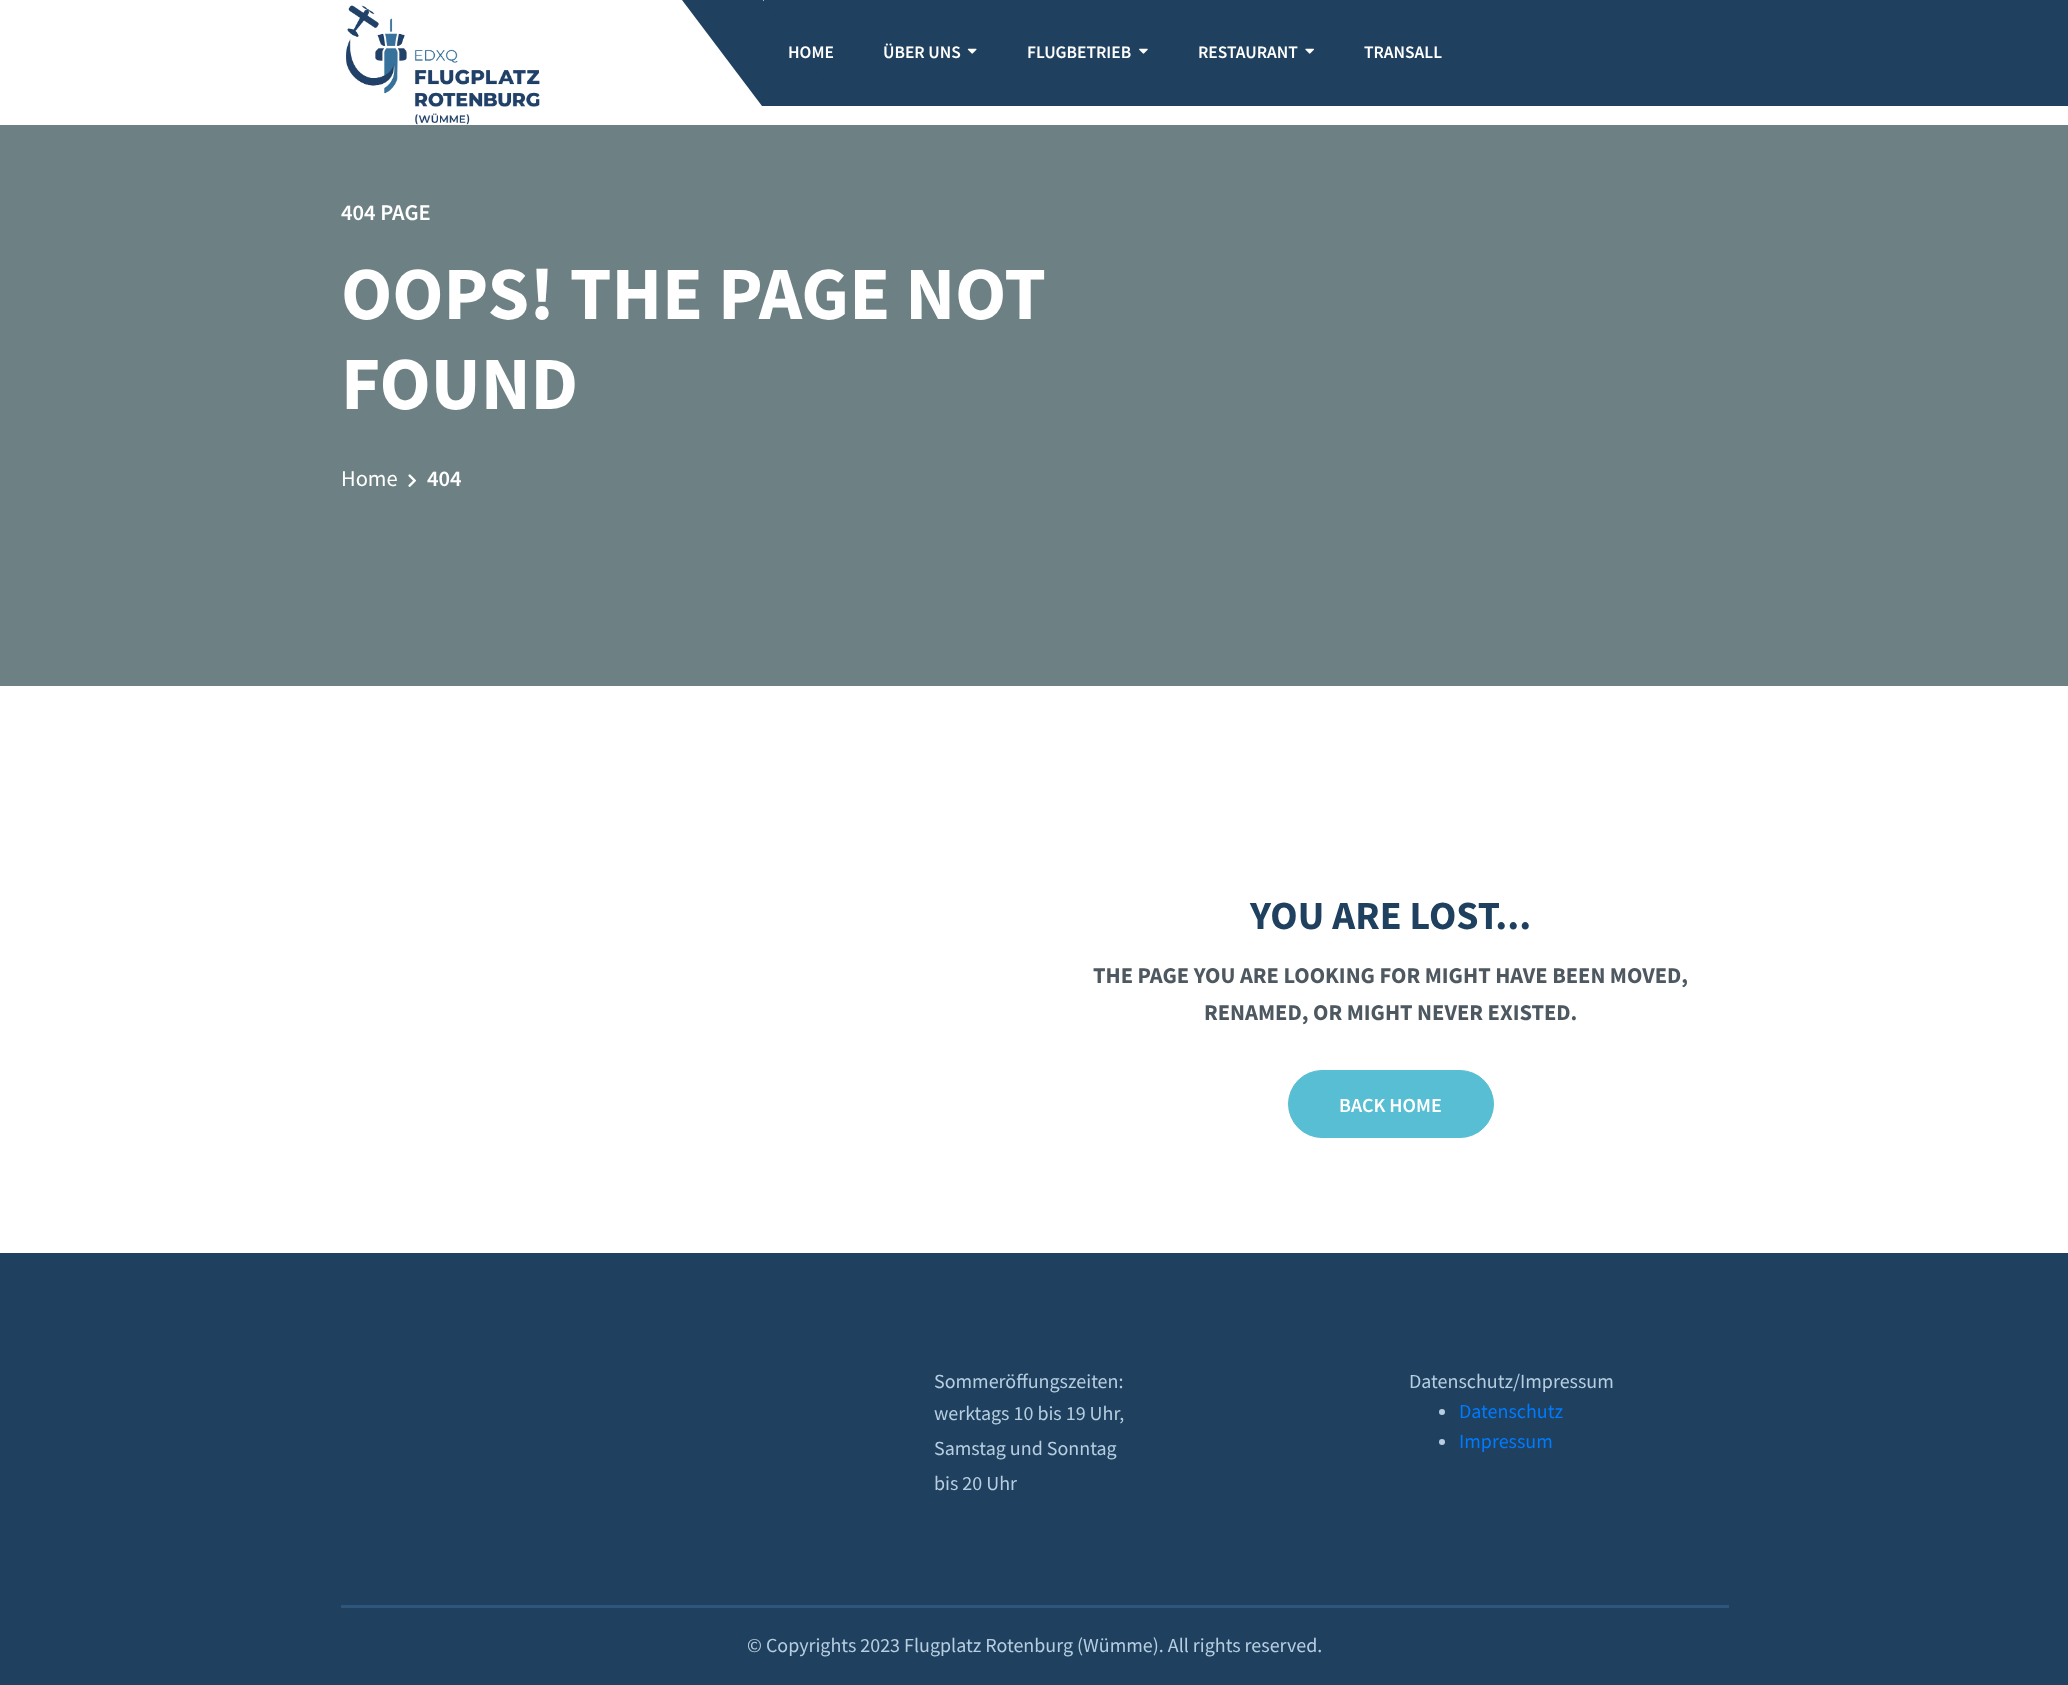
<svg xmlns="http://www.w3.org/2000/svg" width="2068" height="1685">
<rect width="100%" height="100%" fill="#fff"/>
<image x="346" y="5" width="194" height="120" href="media/1.png"/>
<rect x="764" width="1304" height="106" fill="#1f415f"/>
<path d="M682 0h81l80 106h-81z" fill="#1f415f"/>
<text x="788" y="58" style="font-family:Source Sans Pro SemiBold;font-size:17.5px;font-weight:600;fill:#fff">HOME</text>
<text x="883" y="58" style="font-family:Source Sans Pro SemiBold;font-size:17.5px;font-weight:600;fill:#fff">ÜBER UNS</text>
<image x="967" y="48" width="10" height="6" href="media/2.png"/>
<text x="1027" y="58" style="font-family:Source Sans Pro SemiBold;font-size:17.5px;font-weight:600;fill:#fff">FLUGBETRIEB</text>
<image x="1139" y="48" width="9" height="6" href="media/3.png"/>
<text x="1198" y="58" style="font-family:Source Sans Pro SemiBold;font-size:17.5px;font-weight:600;fill:#fff">RESTAURANT</text>
<image x="1305" y="48" width="9" height="6" href="media/4.png"/>
<text x="1364" y="58" style="font-family:Source Sans Pro SemiBold;font-size:17.5px;font-weight:600;fill:#fff">TRANSALL</text>
<rect y="125" width="2068" height="561" fill="#6d8084"/>
<text x="341" y="220" style="font-family:Source Sans Pro SemiBold;font-size:22.5px;font-weight:600;fill:#fff">404 PAGE</text>
<text x="341" y="319" style="font-family:Source Sans Pro;font-size:75px;font-weight:bold;fill:#fff">OOPS! THE PAGE NOT</text>
<text x="341" y="409" style="font-family:Source Sans Pro;font-size:75px;font-weight:bold;fill:#fff">FOUND</text>
<text x="341" y="486" style="font-family:Source Sans Pro;font-size:22.5px;fill:#fff">Home</text>
<image x="408" y="474" width="8" height="13" href="media/5.png"/>
<text x="427" y="486" style="font-family:Source Sans Pro SemiBold;font-size:22.5px;font-weight:600;fill:#fff">404</text>
<text x="1250" y="929" style="font-family:Source Sans Pro;font-size:40px;font-weight:bold;fill:#1f415f">YOU ARE LOST...</text>
<text x="1093" y="983" style="font-family:Source Sans Pro;font-size:22.5px;font-weight:bold;fill:#4e5861">THE PAGE YOU ARE LOOKING FOR MIGHT HAVE BEEN MOVED,</text>
<text x="1204" y="1020" style="font-family:Source Sans Pro;font-size:22.5px;font-weight:bold;fill:#4e5861">RENAMED, OR MIGHT NEVER EXISTED.</text>
<rect x="1288.5" y="1070.5" width="205" height="67" rx="33.5" fill="#58bed3" stroke="#58bed3"/>
<text x="1339" y="1112" style="font-family:Source Sans Pro SemiBold;font-size:20px;font-weight:600;fill:#fff">BACK HOME</text>
<rect y="1253" width="2068" height="432" fill="#1f415f"/>
<rect x="341" y="1605" width="1388" height="3" fill="#2e567a"/>
<text x="934" y="1388" style="font-family:Source Sans Pro;font-size:20px;fill:#b7cee1">Sommeröffungszeiten:</text>
<text x="934" y="1420" style="font-family:Source Sans Pro;font-size:20px;fill:#b7cee1">werktags 10 bis 19 Uhr,</text>
<text x="934" y="1455" style="font-family:Source Sans Pro;font-size:20px;fill:#b7cee1">Samstag und Sonntag</text>
<text x="934" y="1490" style="font-family:Source Sans Pro;font-size:20px;fill:#b7cee1">bis 20 Uhr</text>
<text x="1409" y="1388" style="font-family:Source Sans Pro;font-size:20px;fill:#b7cee1">Datenschutz/Impressum</text>
<circle cx="1442" cy="1412" r="3" fill="#b7cee1"/>
<text x="1459" y="1418" style="font-family:Source Sans Pro;font-size:20px;fill:#007bff">Datenschutz</text>
<circle cx="1442" cy="1442" r="3" fill="#b7cee1"/>
<text x="1459" y="1448" style="font-family:Source Sans Pro;font-size:20px;fill:#007bff">Impressum</text>
<text x="747" y="1652" style="font-family:Source Sans Pro;font-size:20px;fill:#b7cee1">© Copyrights 2023 Flugplatz Rotenburg (Wümme). All rights reserved.</text>
</svg>
